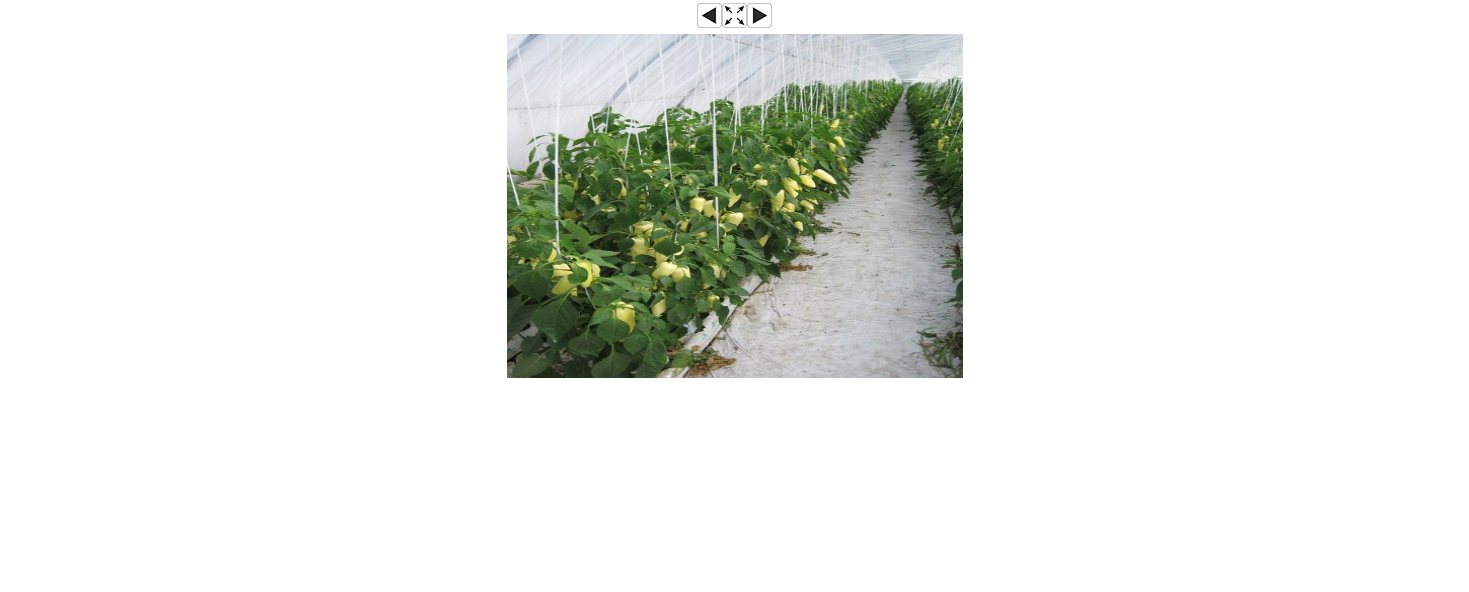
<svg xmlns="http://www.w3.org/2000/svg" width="1469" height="592">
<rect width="100%" height="100%" fill="#fff"/>
<image x="697" y="3" width="25" height="25" href="media/1.png"/>
<image x="722" y="3" width="25" height="25" href="media/2.png"/>
<image x="747" y="3" width="25" height="25" href="media/3.png"/>
<image x="507" y="34" width="456" height="344" href="media/4.png"/>
</svg>
